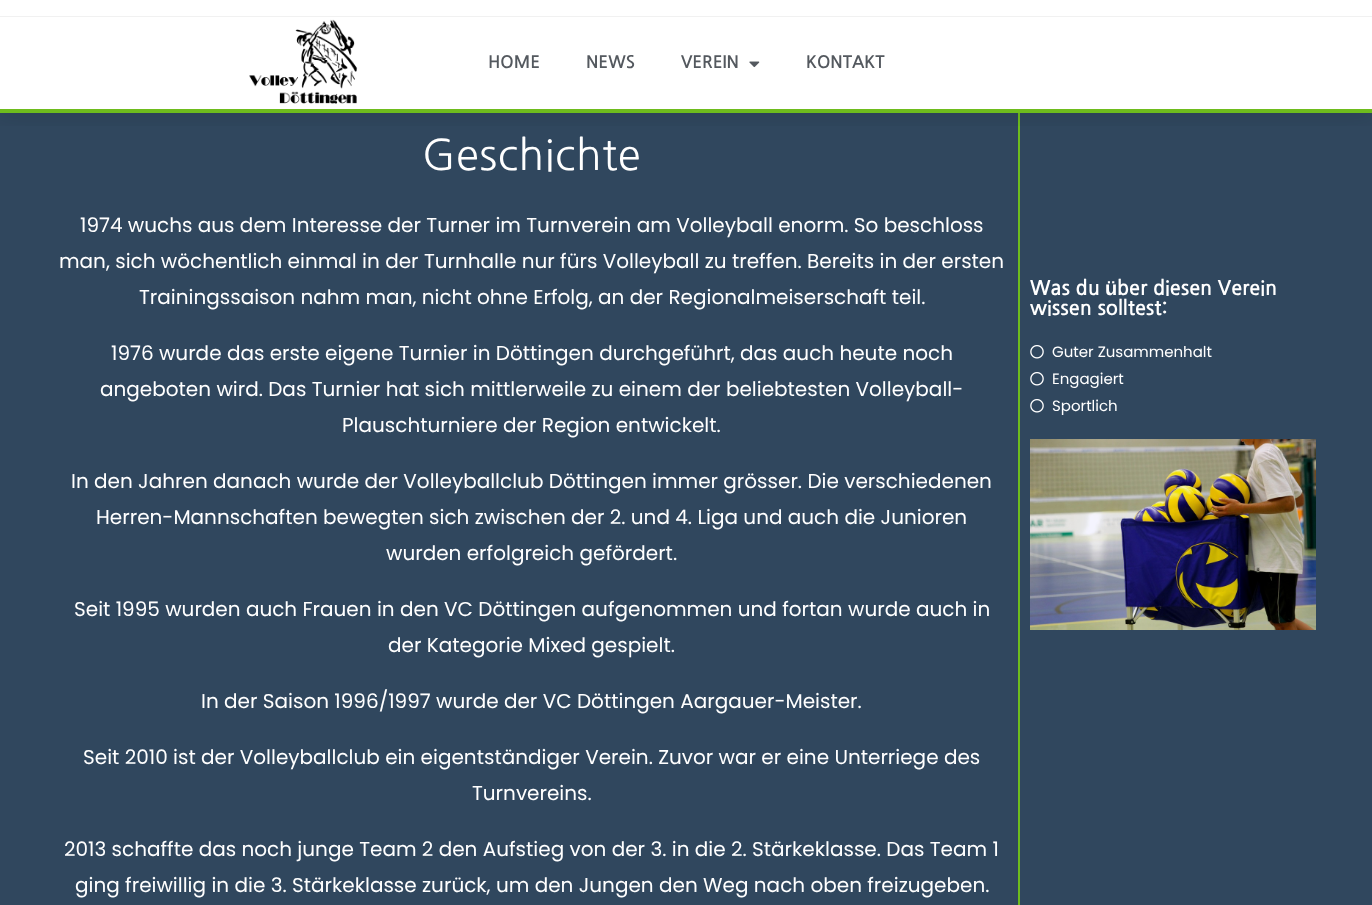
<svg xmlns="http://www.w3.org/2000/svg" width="1372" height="905">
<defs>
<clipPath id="clip1"><rect x="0" y="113" width="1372" height="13"/></clipPath>
</defs>
<rect width="100%" height="100%" fill="#30475e"/>
<rect y="17" width="1372" height="92" fill="#fff"/>
<rect x="1018" y="113" width="2" height="792" fill="#6ebc1d"/>
<g clip-path="url(#clip1)">
<rect y="17" width="1372" height="96" fill="#00000026" filter="blur(12px)"/>
</g>
<rect width="1372" height="16" fill="#fff"/>
<rect y="16" width="1372" height="1" fill="#f1f1f1"/>
<rect y="109" width="1372" height="4" fill="#6ebc1d"/>
<image x="249" y="19" width="109" height="85" href="media/1.png"/>
<text x="488" y="68" style="font-family:NanumGothic;font-size:17px;font-weight:bold;fill:#54595f">HOME</text>
<text x="586" y="68" style="font-family:NanumGothic;font-size:17px;font-weight:bold;fill:#54595f">NEWS</text>
<text x="681" y="68" style="font-family:NanumGothic;font-size:17px;font-weight:bold;fill:#54595f">VEREIN</text>
<image x="749" y="61" width="11" height="7" href="media/2.png"/>
<text x="806" y="68" style="font-family:NanumGothic;font-size:17px;font-weight:bold;fill:#54595f">KONTAKT</text>
<text x="422" y="170" style="font-family:NanumGothic;font-size:42px;letter-spacing:0.5px;fill:#fff">Geschichte</text>
<text x="80" y="232" style="font-family:Poppins;font-size:20px;fill:#fff">1974 wuchs aus dem Interesse der Turner im Turnverein am Volleyball enorm. So beschloss</text>
<text x="59" y="268" style="font-family:Poppins;font-size:20px;fill:#fff">man, sich wöchentlich einmal in der Turnhalle nur fürs Volleyball zu treffen. Bereits in der ersten</text>
<text x="139" y="304" style="font-family:Poppins;font-size:20px;fill:#fff">Trainingssaison nahm man, nicht ohne Erfolg, an der Regionalmeiserschaft teil.</text>
<text x="111" y="360" style="font-family:Poppins;font-size:20px;fill:#fff">1976 wurde das erste eigene Turnier in Döttingen durchgeführt, das auch heute noch</text>
<text x="100" y="396" style="font-family:Poppins;font-size:20px;fill:#fff">angeboten wird. Das Turnier hat sich mittlerweile zu einem der beliebtesten Volleyball-</text>
<text x="342" y="432" style="font-family:Poppins;font-size:20px;fill:#fff">Plauschturniere der Region entwickelt.</text>
<text x="71" y="488" style="font-family:Poppins;font-size:20px;fill:#fff">In den Jahren danach wurde der Volleyballclub Döttingen immer grösser. Die verschiedenen</text>
<text x="96" y="524" style="font-family:Poppins;font-size:20px;fill:#fff">Herren-Mannschaften bewegten sich zwischen der 2. und 4. Liga und auch die Junioren</text>
<text x="386" y="560" style="font-family:Poppins;font-size:20px;fill:#fff">wurden erfolgreich gefördert.</text>
<text x="74" y="616" style="font-family:Poppins;font-size:20px;fill:#fff">Seit 1995 wurden auch Frauen in den VC Döttingen aufgenommen und fortan wurde auch in</text>
<text x="388" y="652" style="font-family:Poppins;font-size:20px;fill:#fff">der Kategorie Mixed gespielt.</text>
<text x="201" y="708" style="font-family:Poppins;font-size:20px;fill:#fff">In der Saison 1996/1997 wurde der VC Döttingen Aargauer-Meister.</text>
<text x="83" y="764" style="font-family:Poppins;font-size:20px;fill:#fff">Seit 2010 ist der Volleyballclub ein eigentständiger Verein. Zuvor war er eine Unterriege des</text>
<text x="472" y="800" style="font-family:Poppins;font-size:20px;fill:#fff">Turnvereins.</text>
<text x="64" y="856" style="font-family:Poppins;font-size:20px;fill:#fff">2013 schaffte das noch junge Team 2 den Aufstieg von der 3. in die 2. Stärkeklasse. Das Team 1</text>
<text x="75" y="892" style="font-family:Poppins;font-size:20px;fill:#fff">ging freiwillig in die 3. Stärkeklasse zurück, um den Jungen den Weg nach oben freizugeben.</text>
<text x="1030" y="295" style="font-family:NanumGothic;font-size:20px;font-weight:bold;fill:#fff">Was du</text>
<text x="1105" y="295" style="font-family:Liberation Sans;font-size:20px;font-weight:bold;fill:#fff">ü</text>
<text x="1117" y="295" style="font-family:NanumGothic;font-size:20px;font-weight:bold;fill:#fff">ber diesen Verein</text>
<text x="1030" y="315" style="font-family:NanumGothic;font-size:20px;font-weight:bold;fill:#fff">wissen solltest:</text>
<image x="1030" y="345" width="14" height="14" href="media/3.png"/>
<text x="1052" y="357" style="font-family:Poppins;font-size:15px;fill:#fff">Guter Zusammenhalt</text>
<image x="1030" y="372" width="14" height="14" href="media/3.png"/>
<text x="1052" y="384" style="font-family:Poppins;font-size:15px;fill:#fff">Engagiert</text>
<image x="1030" y="399" width="14" height="14" href="media/3.png"/>
<text x="1052" y="411" style="font-family:Poppins;font-size:15px;fill:#fff">Sportlich</text>
<image x="1030" y="439" width="286" height="191" href="media/4.png"/>
</svg>
